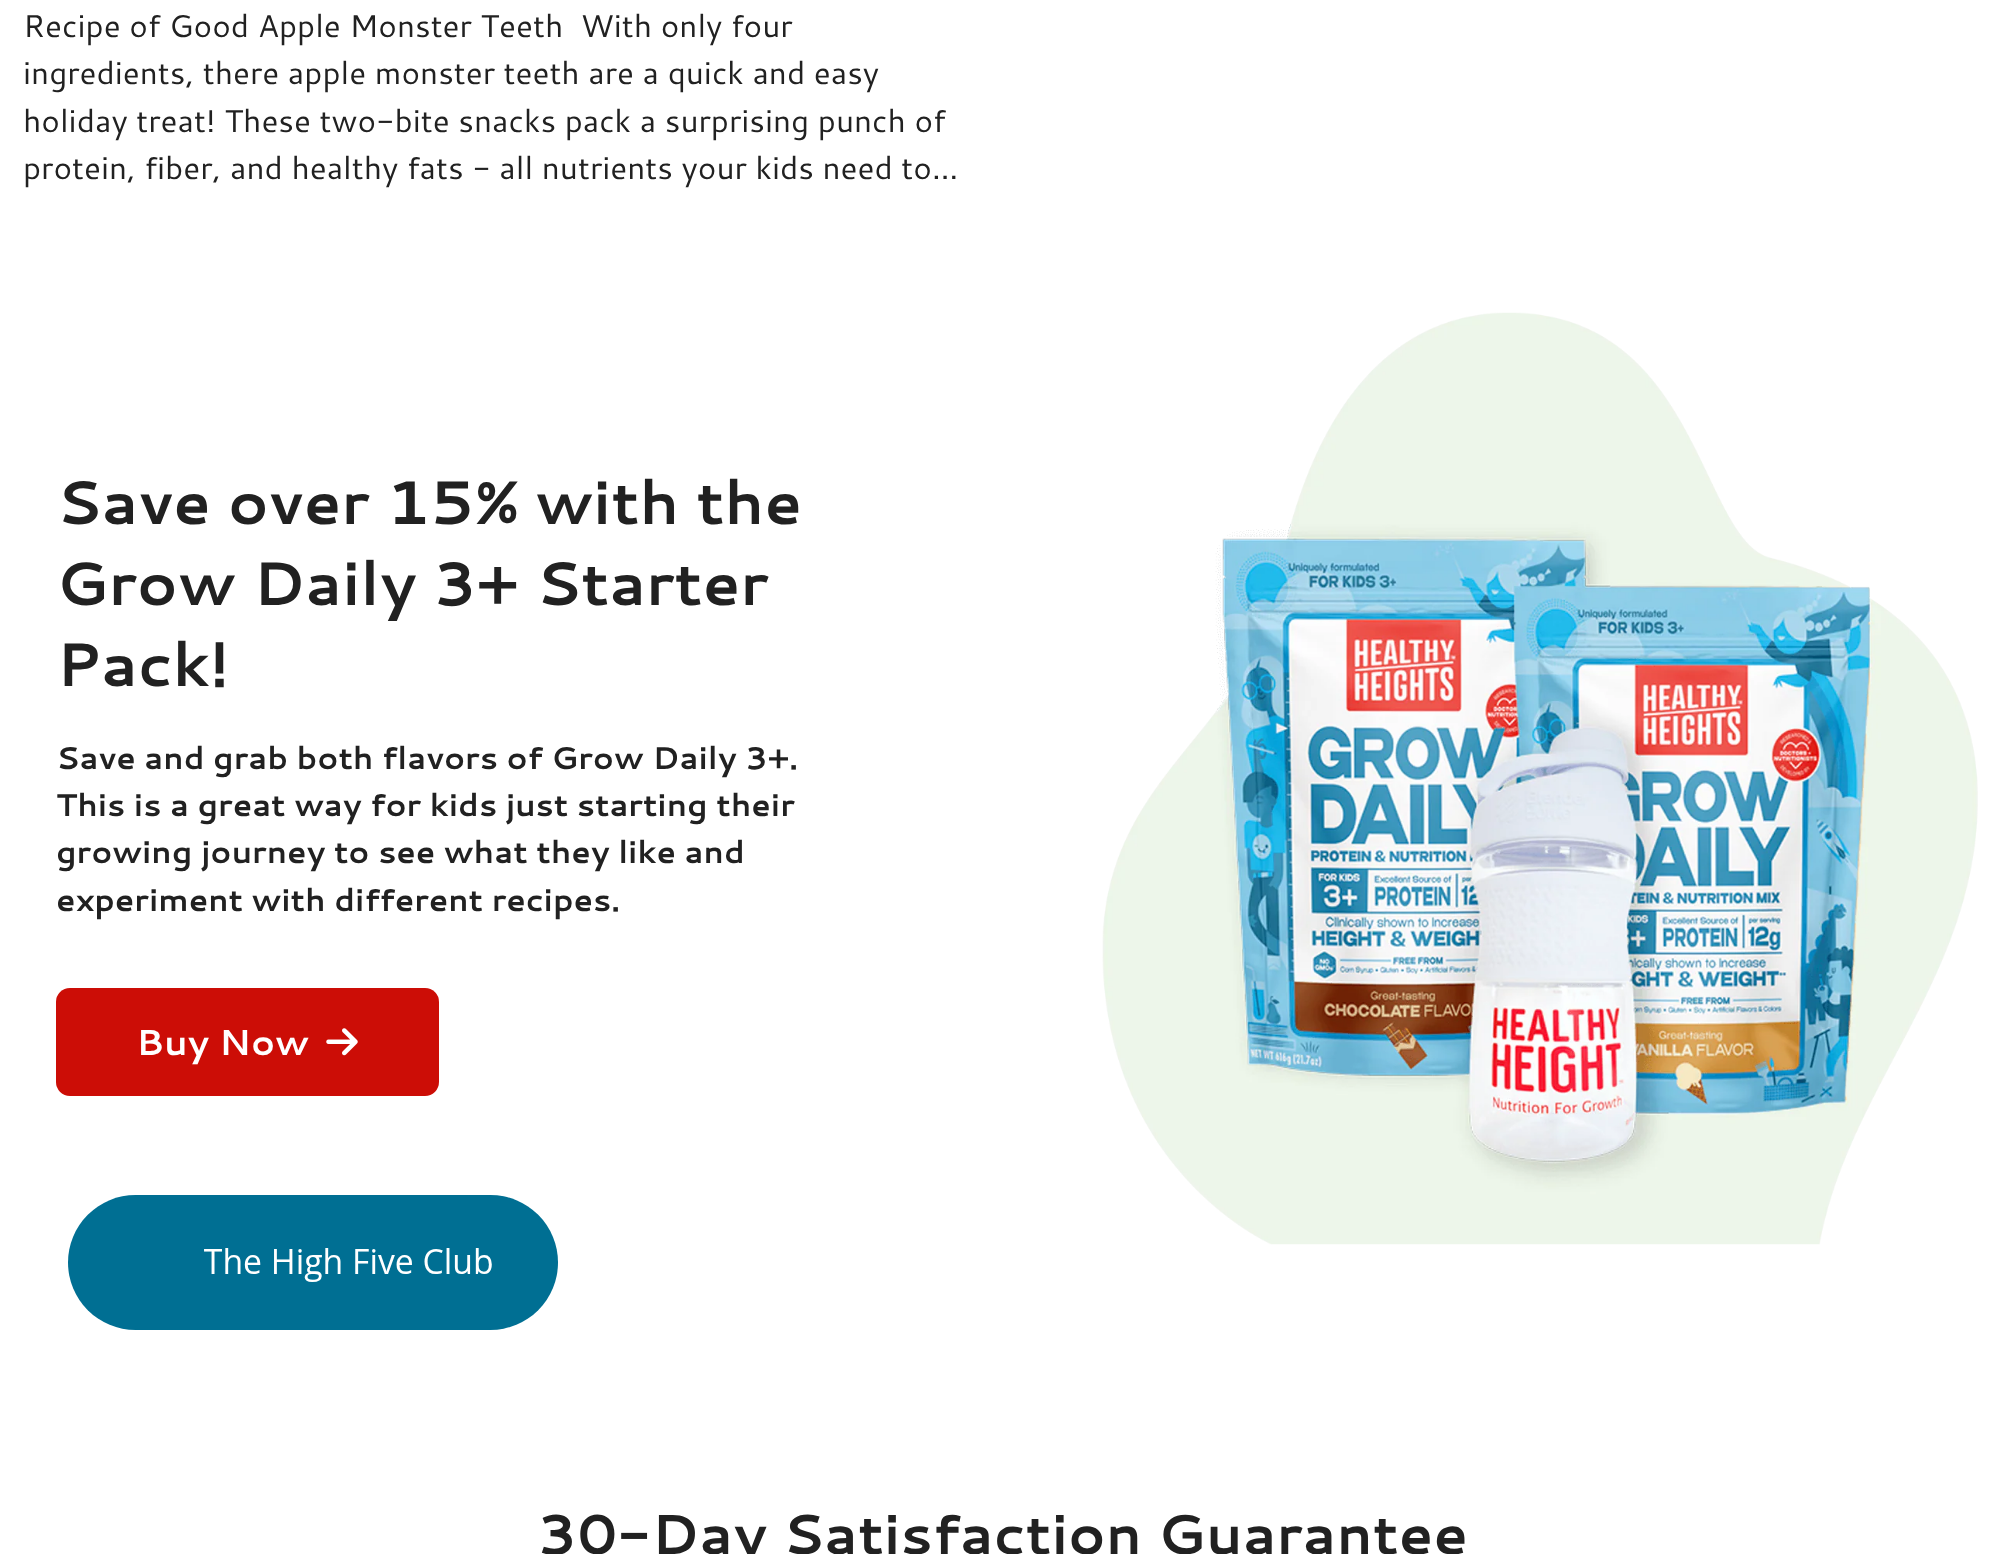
<svg xmlns="http://www.w3.org/2000/svg" width="2003" height="1554">
<rect width="100%" height="100%" fill="#fff"/>
<text x="23" y="37" style="font-family:Cantarell;font-size:31.5px;fill:#212121" xml:space="preserve">Recipe of Good Apple Monster Teeth  With only four</text>
<text x="23" y="84" style="font-family:Cantarell;font-size:31.5px;fill:#212121">ingredients, there apple monster teeth are a quick and easy</text>
<text x="23" y="132" style="font-family:Cantarell;font-size:31.5px;fill:#212121">holiday treat! These two-bite snacks pack a surprising punch of</text>
<text x="23" y="179" style="font-family:Cantarell;font-size:31.5px;fill:#212121">protein, fiber, and healthy fats - all nutrients your kids need to…</text>
<text x="56" y="524" style="font-family:Cantarell;font-size:61.25px;font-weight:bold;fill:#212121">Save over 15% with the</text>
<text x="56" y="605" style="font-family:Cantarell;font-size:61.25px;font-weight:bold;fill:#212121">Grow Daily 3+ Starter</text>
<text x="56" y="686" style="font-family:Cantarell;font-size:61.25px;font-weight:bold;fill:#212121">Pack!</text>
<text x="56" y="769" style="font-family:Cantarell;font-size:31.5px;font-weight:bold;fill:#212121">Save and grab both flavors of Grow Daily 3+.</text>
<text x="56" y="816" style="font-family:Cantarell;font-size:31.5px;font-weight:bold;fill:#212121">This is a great way for kids just starting their</text>
<text x="56" y="863" style="font-family:Cantarell;font-size:31.5px;font-weight:bold;fill:#212121">growing journey to see what they like and</text>
<text x="56" y="911" style="font-family:Cantarell;font-size:31.5px;font-weight:bold;fill:#212121">experiment with different recipes.</text>
<rect x="56" y="988" width="383" height="108" rx="14" fill="#cc0d06"/>
<text x="136" y="1055" style="font-family:Cantarell;font-size:36px;font-weight:bold;fill:#fff">Buy Now</text>
<image x="326" y="1028" width="32" height="28" href="media/1.png"/>
<image x="1102" y="312" width="876" height="933" href="media/2.png"/>
<text x="537" y="1554" style="font-family:Cantarell;font-size:56.25px;font-weight:bold;fill:#212121">30-Day Satisfaction Guarantee</text>
<rect x="68" y="1195" width="490" height="135" rx="67.5" fill="#006f93"/>
<image x="204" y="1248" width="288" height="34" href="media/3.png"/>
</svg>
